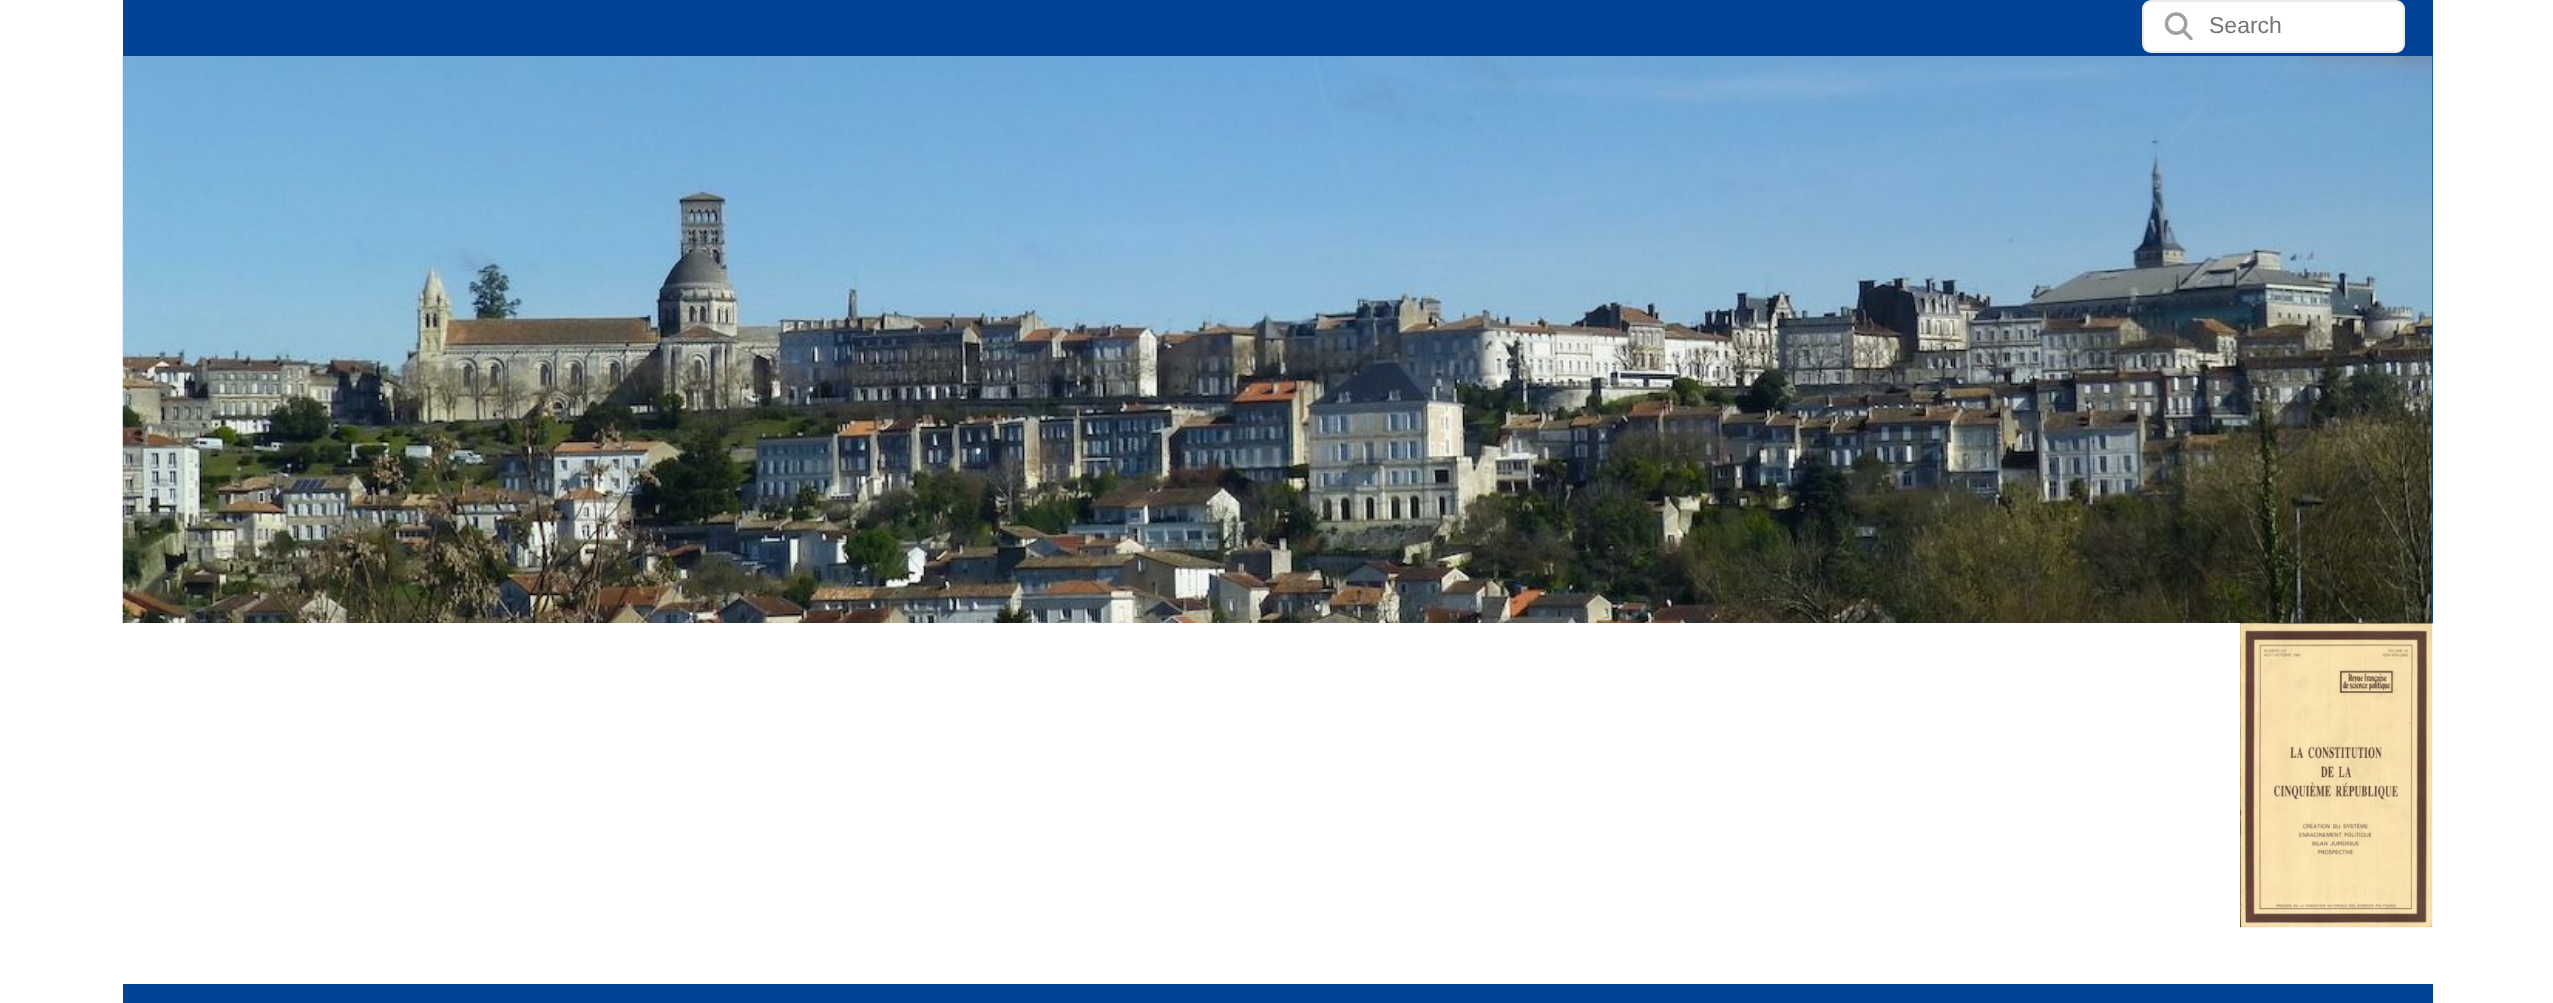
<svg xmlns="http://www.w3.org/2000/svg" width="2553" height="1003">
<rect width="100%" height="100%" fill="#fff"/>
<rect x="123" width="2310" height="623" fill="#004397"/>
<rect x="2142" width="263" height="53" rx="9" fill="#fff"/>
<rect x="2143" y="1" width="261" height="51" rx="8" fill="none" stroke="#00000014" stroke-width="2"/>
<image x="2164" y="12" width="29" height="29" href="media/1.png"/>
<text x="2209" y="33" style="font-family:Liberation Sans;font-size:23px;fill:#757575">Search</text>
<image x="122" y="56" width="2311" height="567" href="media/2.png"/>
<image x="2240" y="623" width="193" height="305" href="media/3.png"/>
<rect x="123" y="984" width="2310" height="19" fill="#004397"/>
</svg>
